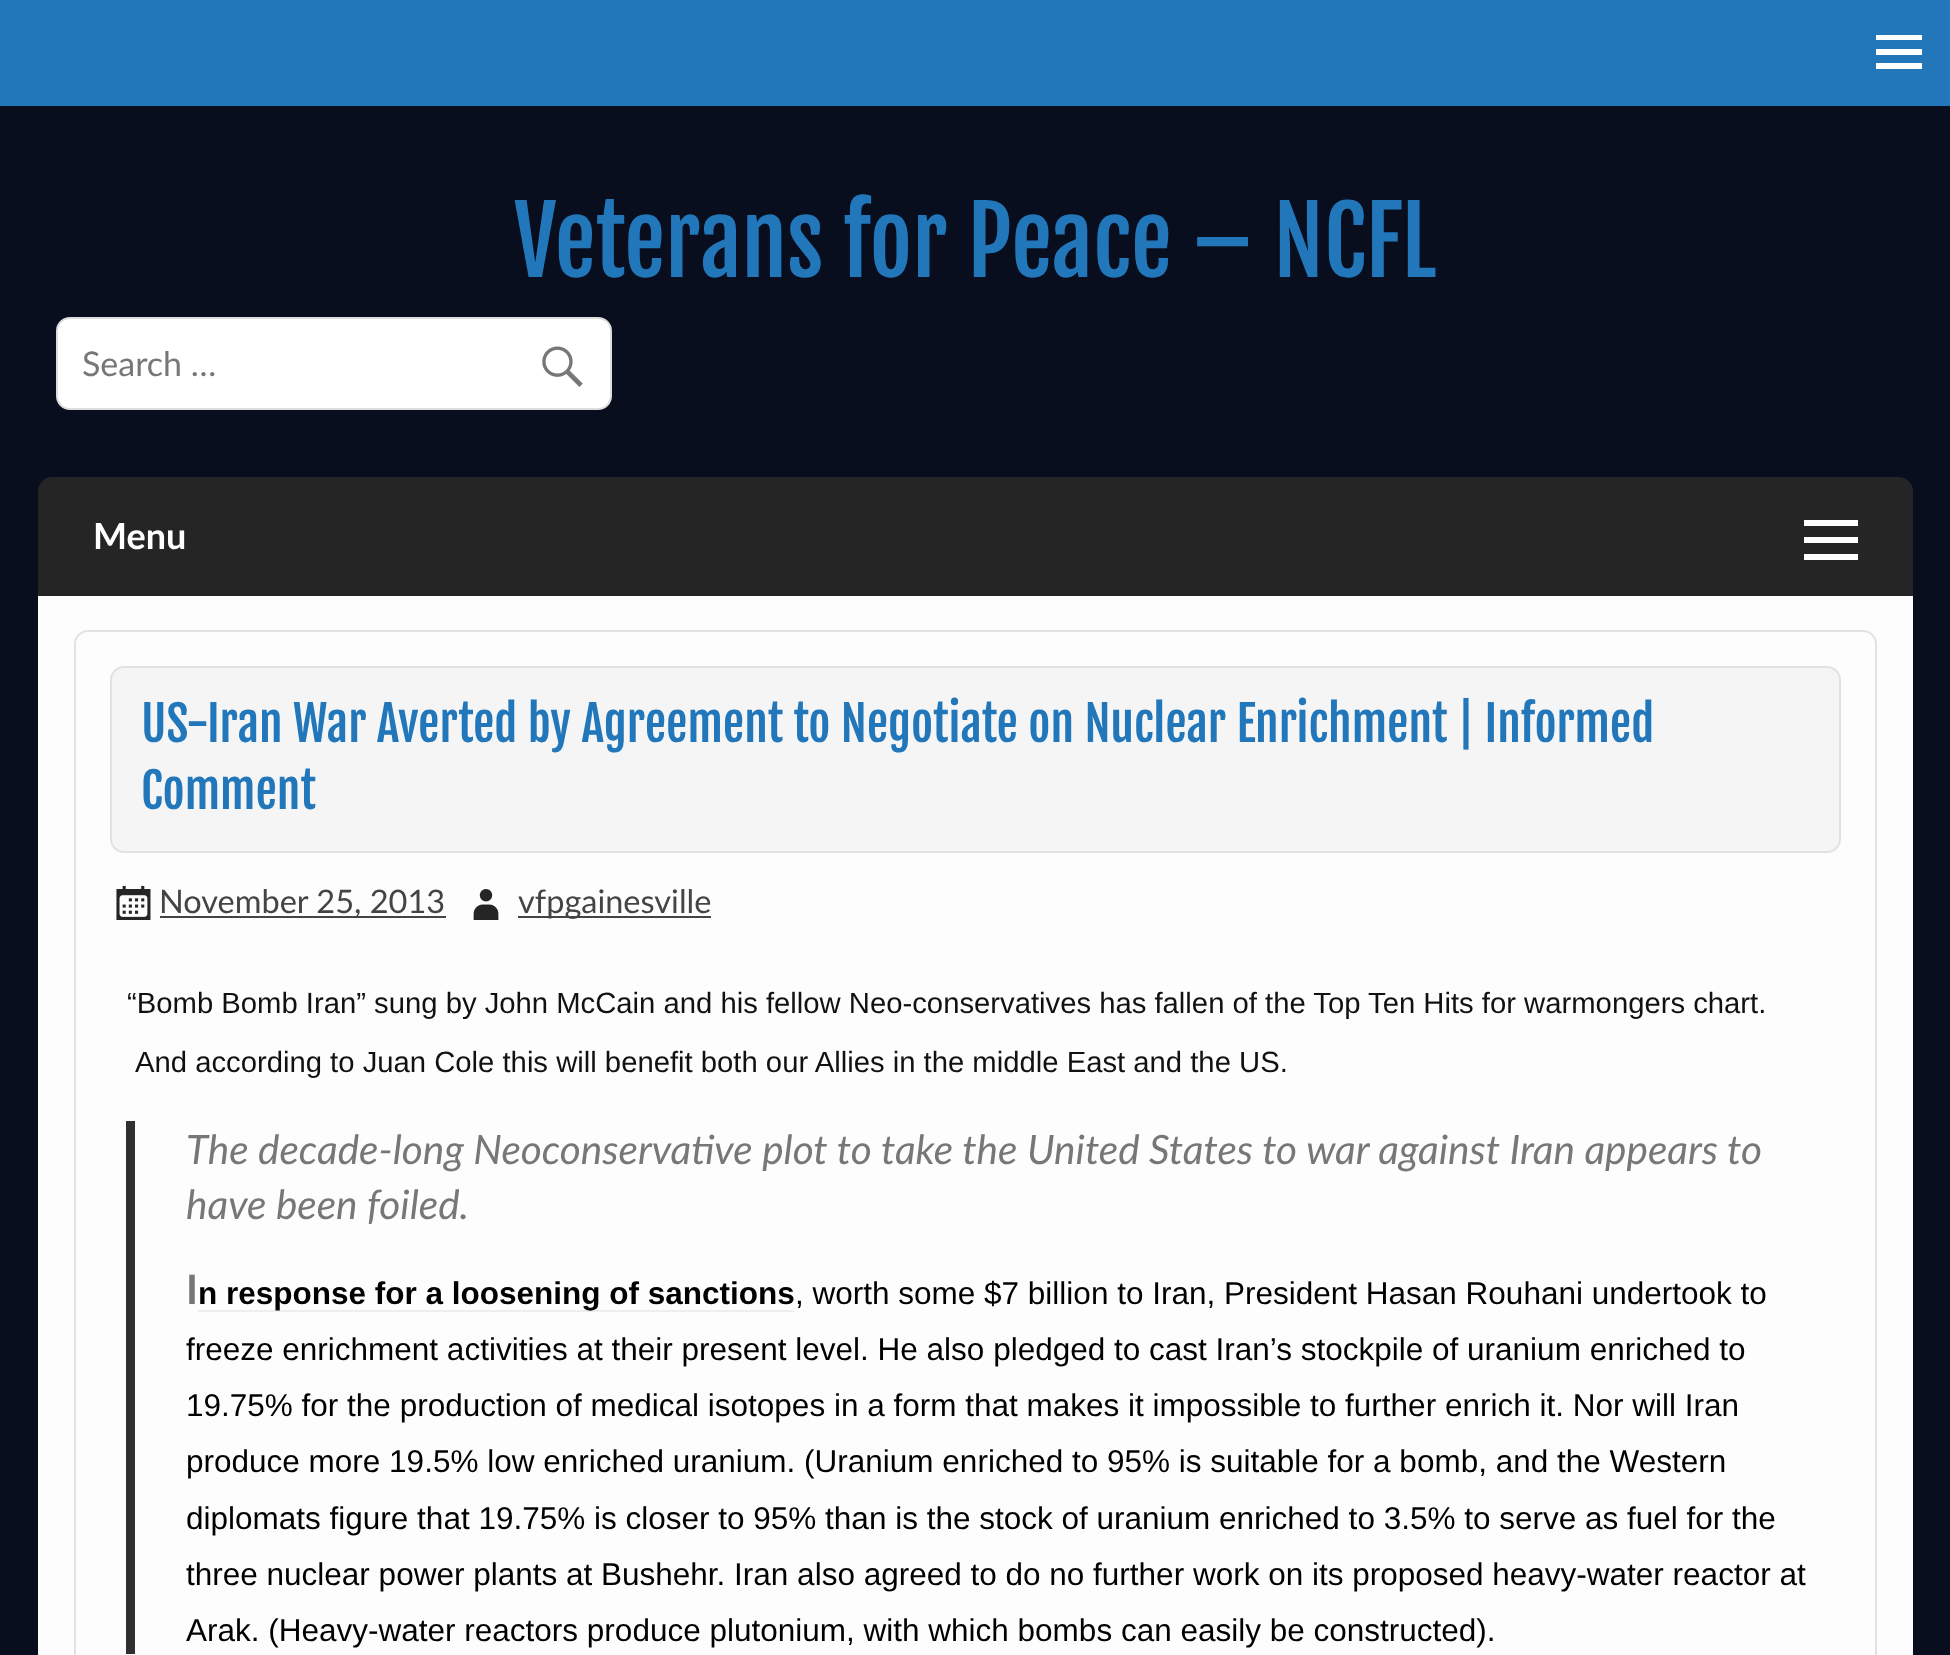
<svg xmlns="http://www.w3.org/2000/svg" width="1950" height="1655">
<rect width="100%" height="100%" fill="#080e1e"/>
<rect width="1950" height="106" fill="#27b"/>
<path d="M1876 69v-6h46v6zm0-34h46v5h-46zm0 20v-6h46v6z" fill="#fff"/>
<text x="514" y="277" style="font-family:Fjalla One;font-size:92.25px;fill:#27b">Veterans for Peace – NCFL</text>
<rect x="57" y="318" width="554" height="91" rx="13" fill="#fff" stroke="#ddd" stroke-width="2"/>
<text x="82" y="376" style="font-family:Lato;font-size:34px;fill:#777">Search …</text>
<image x="542" y="346" width="41" height="41" href="media/1.png"/>
<path d="M52 477h1847c7.5 0 14 6.5 14 14v105h-1875v-105c0-7.5 6.5-14 14-14z" fill="#252525"/>
<text x="93" y="549" style="font-family:Lato;font-size:36px;font-weight:bold;fill:#fff">Menu</text>
<path d="M1804 560v-6h54v6zm0-40h54v6h-54zm0 23v-6h54v6z" fill="#fff"/>
<rect x="38" y="596" width="1875" height="1059" fill="#fdfdfd"/>
<rect x="75" y="631" width="1801" height="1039" rx="13" fill="none" stroke="#e2e2e2" stroke-width="2"/>
<rect x="111" y="667" width="1729" height="185" rx="13" fill="#f5f5f5" stroke="#e2e2e2" stroke-width="2"/>
<text x="141" y="742" style="font-family:Fjalla One;font-size:47.9px;fill:#27b">US-Iran War Averted by Agreement to Negotiate on Nuclear Enrichment | Informed</text>
<text x="141" y="809" style="font-family:Fjalla One;font-size:47.9px;fill:#27b">Comment</text>
<image x="116" y="885" width="35" height="35" href="media/2.png"/>
<rect x="160" y="916" width="286" height="2" fill="#444"/>
<text x="159" y="913" style="font-family:Lato;font-size:32.5px;fill:#444">November 25, 2013</text>
<image x="473" y="889" width="26" height="31" href="media/3.png"/>
<rect x="518" y="916" width="193" height="2" fill="#444"/>
<text x="518" y="913" style="font-family:Lato;font-size:32.5px;fill:#444">vfpgainesville</text>
<text x="127" y="1013" style="font-family:Liberation Sans;font-size:29.25px;fill:#111">“Bomb Bomb Iran” sung by John McCain and his fellow Neo-conservatives has fallen of the Top Ten Hits for warmongers chart.</text>
<text x="135" y="1072" style="font-family:Liberation Sans;font-size:29.25px;fill:#111">And according to Juan Cole this will benefit both our Allies in the middle East and the US.</text>
<rect x="126" y="1121" width="9" height="533" fill="#303030"/>
<text x="186" y="1164" style="font-family:Lato;font-size:40.5px;font-style:italic;fill:#777">The decade-long Neoconservative plot to take the United States to war against Iran appears to</text>
<text x="186" y="1219" style="font-family:Lato;font-size:40.5px;font-style:italic;fill:#777">have been foiled.</text>
<text x="186" y="1304" style="font-family:Lato;font-size:40.5px;font-weight:bold;fill:#777">I</text>
<rect x="198" y="1310" width="596" height="2" fill="#eee"/>
<text x="198" y="1304" style="font-family:Liberation Sans;font-size:31.5px;font-weight:bold;fill:#000">n response for a loosening of sanctions</text>
<text x="795" y="1304" style="font-family:Liberation Sans;font-size:31.5px;fill:#000">, worth some $7 billion to Iran, President Hasan Rouhani undertook to</text>
<text x="186" y="1360" style="font-family:Liberation Sans;font-size:31.5px;fill:#000">freeze enrichment activities at their present level. He also pledged to cast Iran’s stockpile of uranium enriched to</text>
<text x="186" y="1416" style="font-family:Liberation Sans;font-size:31.5px;fill:#000">19.75% for the production of medical isotopes in a form that makes it impossible to further enrich it. Nor will Iran</text>
<text x="186" y="1472" style="font-family:Liberation Sans;font-size:31.5px;fill:#000">produce more 19.5% low enriched uranium. (Uranium enriched to 95% is suitable for a bomb, and the Western</text>
<text x="186" y="1529" style="font-family:Liberation Sans;font-size:31.5px;fill:#000">diplomats figure that 19.75% is closer to 95% than is the stock of uranium enriched to 3.5% to serve as fuel for the</text>
<text x="186" y="1585" style="font-family:Liberation Sans;font-size:31.5px;fill:#000">three nuclear power plants at Bushehr. Iran also agreed to do no further work on its proposed heavy-water reactor at</text>
<text x="186" y="1641" style="font-family:Liberation Sans;font-size:31.5px;fill:#000">Arak. (Heavy-water reactors produce plutonium, with which bombs can easily be constructed).</text>
</svg>
